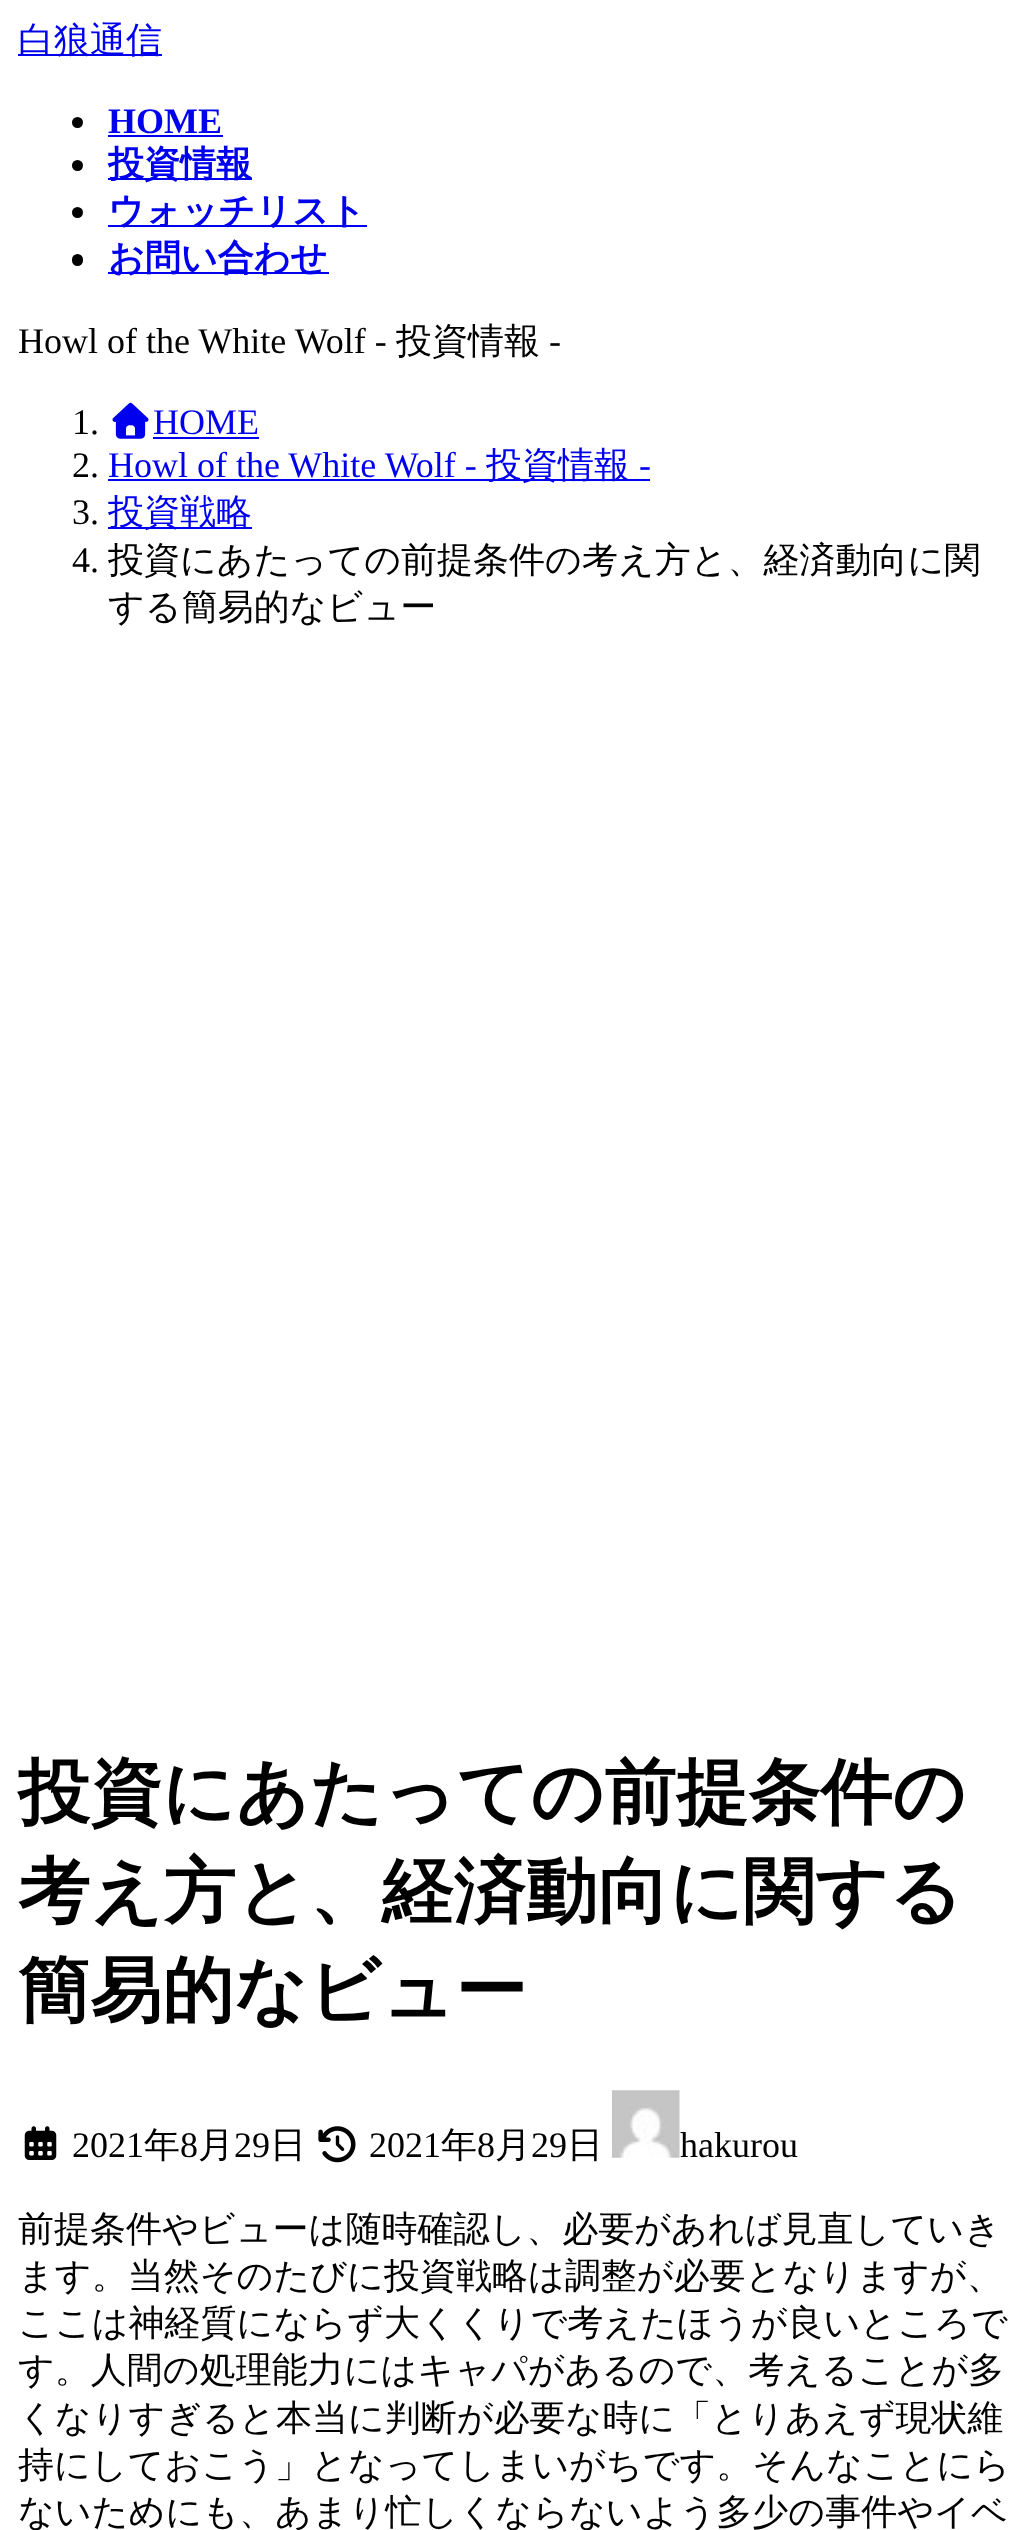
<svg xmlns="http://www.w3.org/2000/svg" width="1027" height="2530">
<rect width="100%" height="100%" fill="#fff"/>
<rect x="18" y="54" width="144" height="2" fill="#00e"/>
<text x="18" y="52" style="font-family:WenQuanYi Zen Hei;font-size:36px;font-weight:500;fill:#00e">白狼通信</text>
<circle cx="77.5" cy="122.5" r="5.5" fill="#000"/>
<text x="108" y="133" style="font-family:Liberation Serif;font-size:36px;font-weight:bold;fill:#00e">HOME</text>
<rect x="108" y="135" width="115" height="2" fill="#00e"/>
<circle cx="77.5" cy="165.5" r="5.5" fill="#000"/>
<rect x="108" y="178" width="144" height="2" fill="#00e"/>
<text x="108" y="176" style="font-family:WenQuanYi Zen Hei;font-size:36px;font-weight:bold;fill:#00e">投資情報</text>
<circle cx="77.5" cy="212.5" r="5.5" fill="#000"/>
<rect x="108" y="225" width="259" height="2" fill="#00e"/>
<text x="108" y="223" style="font-family:WenQuanYi Zen Hei;font-size:36px;font-weight:bold;fill:#00e">ウォッチリスト</text>
<rect x="72" y="254" width="11" height="12" rx="5.5" fill="#000"/>
<rect x="108" y="272" width="221" height="2" fill="#00e"/>
<text x="108" y="270" style="font-family:WenQuanYi Zen Hei;font-size:36px;font-weight:bold;fill:#00e">お問い合わせ</text>
<text x="18" y="353" style="font-family:Liberation Serif;font-size:36px;fill:#000">Howl of the White Wolf -</text>
<text x="396" y="353" style="font-family:WenQuanYi Zen Hei;font-size:36px;font-weight:500;fill:#000">投資情報</text>
<text x="549" y="353" style="font-family:Liberation Serif;font-size:36px;fill:#000">-</text>
<text x="72" y="434" style="font-family:Liberation Serif;font-size:36px;fill:#000">1.</text>
<image x="112" y="402" width="37" height="37" href="media/1.png"/>
<text x="153" y="434" style="font-family:Liberation Serif;font-size:36px;fill:#00e">HOME</text>
<rect x="153" y="437" width="106" height="2" fill="#00e"/>
<text x="72" y="477" style="font-family:Liberation Serif;font-size:36px;fill:#000">2.</text>
<text x="108" y="477" style="font-family:Liberation Serif;font-size:36px;fill:#00e">Howl of the White Wolf -</text>
<rect x="108" y="479" width="542" height="2" fill="#00e"/>
<text x="486" y="477" style="font-family:WenQuanYi Zen Hei;font-size:36px;font-weight:500;fill:#00e">投資情報</text>
<text x="639" y="477" style="font-family:Liberation Serif;font-size:36px;fill:#00e">-</text>
<text x="72" y="524" style="font-family:Liberation Serif;font-size:36px;fill:#000">3.</text>
<rect x="108" y="527" width="144" height="2" fill="#00e"/>
<text x="108" y="524" style="font-family:WenQuanYi Zen Hei;font-size:36px;font-weight:500;fill:#00e">投資戦略</text>
<text x="72" y="572" style="font-family:Liberation Serif;font-size:36px;fill:#000">4.</text>
<text x="108" y="572" style="font-family:WenQuanYi Zen Hei;font-size:36px;font-weight:500;fill:#000">投資にあたっての前提条件の考え方と、経済動向に関</text>
<text x="108" y="619" style="font-family:WenQuanYi Zen Hei;font-size:36px;font-weight:500;fill:#000">する簡易的なビュー</text>
<text x="18" y="1817" style="font-family:WenQuanYi Zen Hei;font-size:72px;font-weight:bold;fill:#000">投資にあたっての前提条件の</text>
<text x="18" y="1916" style="font-family:WenQuanYi Zen Hei;font-size:72px;font-weight:bold;fill:#000">考え方と、経済動向に関する</text>
<text x="18" y="2015" style="font-family:WenQuanYi Zen Hei;font-size:72px;font-weight:bold;fill:#000">簡易的なビュー</text>
<image x="24" y="2126" width="33" height="34" href="media/2.png"/>
<text x="72" y="2157" style="font-family:Liberation Serif;font-size:36px;fill:#000">2021</text>
<text x="144" y="2157" style="font-family:WenQuanYi Zen Hei;font-size:36px;font-weight:500;fill:#000">年</text>
<text x="180" y="2157" style="font-family:Liberation Serif;font-size:36px;fill:#000">8</text>
<text x="198" y="2157" style="font-family:WenQuanYi Zen Hei;font-size:36px;font-weight:500;fill:#000">月</text>
<text x="234" y="2157" style="font-family:Liberation Serif;font-size:36px;fill:#000">29</text>
<text x="270" y="2157" style="font-family:WenQuanYi Zen Hei;font-size:36px;font-weight:500;fill:#000">日</text>
<image x="318" y="2126" width="38" height="37" href="media/3.png"/>
<text x="369" y="2157" style="font-family:Liberation Serif;font-size:36px;fill:#000">2021</text>
<text x="441" y="2157" style="font-family:WenQuanYi Zen Hei;font-size:36px;font-weight:500;fill:#000">年</text>
<text x="477" y="2157" style="font-family:Liberation Serif;font-size:36px;fill:#000">8</text>
<text x="495" y="2157" style="font-family:WenQuanYi Zen Hei;font-size:36px;font-weight:500;fill:#000">月</text>
<text x="531" y="2157" style="font-family:Liberation Serif;font-size:36px;fill:#000">29</text>
<text x="567" y="2157" style="font-family:WenQuanYi Zen Hei;font-size:36px;font-weight:500;fill:#000">日</text>
<image x="612" y="2090" width="68" height="68" href="media/4.png"/>
<text x="680" y="2157" style="font-family:Liberation Serif;font-size:36px;fill:#000">hakurou</text>
<text x="18" y="2241" style="font-family:WenQuanYi Zen Hei;font-size:36px;font-weight:500;fill:#000">前提条件やビューは随時確認し、必要があれば見直していき</text>
<text x="18" y="2288" style="font-family:WenQuanYi Zen Hei;font-size:36px;font-weight:500;fill:#000">ます。当然そのたびに投資戦略は調整が必要となりますが、</text>
<text x="18" y="2335" style="font-family:WenQuanYi Zen Hei;font-size:36px;font-weight:500;fill:#000">ここは神経質にならず大くくりで考えたほうが良いところで</text>
<text x="18" y="2382" style="font-family:WenQuanYi Zen Hei;font-size:36px;font-weight:500;fill:#000">す。人間の処理能力にはキャパがあるので、考えることが多</text>
<text x="18" y="2430" style="font-family:WenQuanYi Zen Hei;font-size:36px;font-weight:500;fill:#000">くなりすぎると本当に判断が必要な時に「とりあえず現状維</text>
<text x="18" y="2477" style="font-family:WenQuanYi Zen Hei;font-size:36px;font-weight:500;fill:#000">持にしておこう」となってしまいがちです。そんなことにら</text>
<text x="18" y="2524" style="font-family:WenQuanYi Zen Hei;font-size:36px;font-weight:500;fill:#000">ないためにも、あまり忙しくならないよう多少の事件やイベ</text>
</svg>
